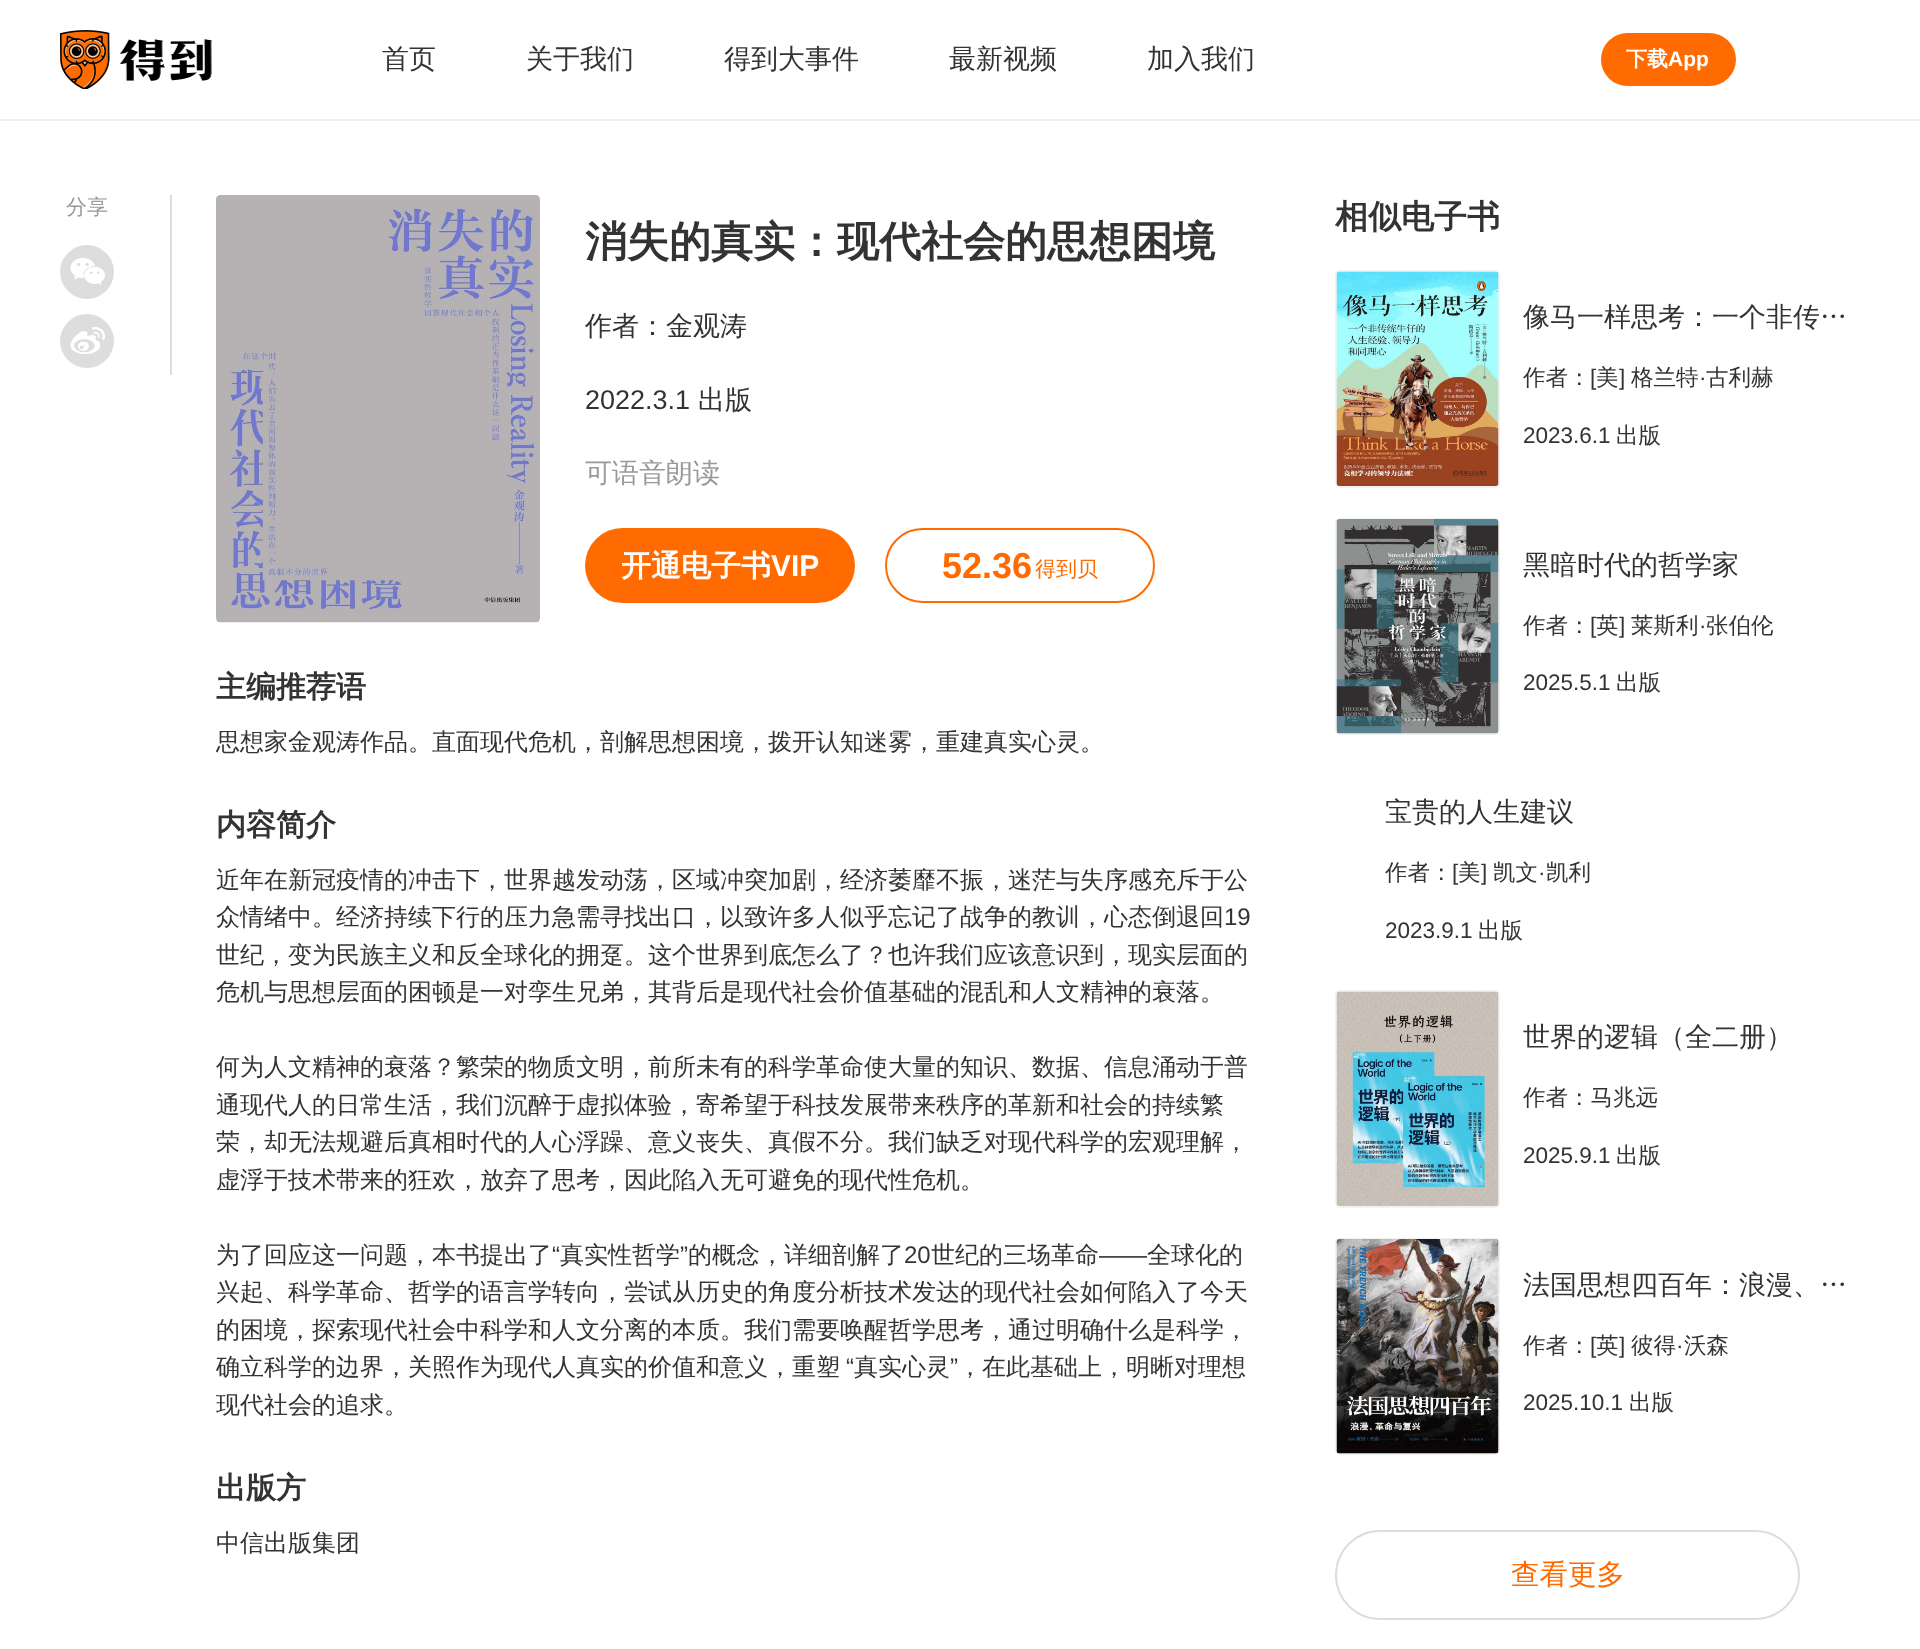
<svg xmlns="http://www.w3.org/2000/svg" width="1920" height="1649">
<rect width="100%" height="100%" fill="#fff"/>
<rect y="119" width="1920" height="2" fill="#eee"/>
<image x="60" y="30" width="153" height="59" href="media/1.png"/>
<text x="382" y="68" style="font-family:WenQuanYi Zen Hei;font-size:27px;font-weight:500;fill:#333">首页</text>
<text x="526" y="68" style="font-family:WenQuanYi Zen Hei;font-size:27px;font-weight:500;fill:#333">关于我们</text>
<text x="724" y="68" style="font-family:WenQuanYi Zen Hei;font-size:27px;font-weight:500;fill:#333">得到大事件</text>
<text x="949" y="68" style="font-family:WenQuanYi Zen Hei;font-size:27px;font-weight:500;fill:#333">最新视频</text>
<text x="1147" y="68" style="font-family:WenQuanYi Zen Hei;font-size:27px;font-weight:500;fill:#333">加入我们</text>
<rect x="1601" y="33" width="135" height="53" rx="26.5" fill="#ff6b00"/>
<text x="1626" y="66" style="font-family:WenQuanYi Zen Hei;font-size:21px;font-weight:bold;fill:#fff">下载</text>
<text x="1668" y="66" style="font-family:Liberation Sans;font-size:21px;font-weight:bold;fill:#fff">App</text>
<rect x="170" y="195" width="2" height="180" fill="#ddd"/>
<text x="66" y="214" style="font-family:WenQuanYi Zen Hei;font-size:21px;font-weight:500;fill:#999">分享</text>
<circle cx="87" cy="272" r="27" fill="#ddd"/>
<image x="70" y="258" width="35" height="27" href="media/2.png"/>
<circle cx="87" cy="341" r="27" fill="#ddd"/>
<image x="70" y="327" width="35" height="27" href="media/3.png"/>
<image x="216" y="195" width="324" height="428" href="media/4.png"/>
<text x="585" y="256" style="font-family:WenQuanYi Zen Hei;font-size:42px;font-weight:bold;fill:#333">消失的真实：现代社会的思想困境</text>
<text x="585" y="335" style="font-family:WenQuanYi Zen Hei;font-size:27px;font-weight:500;fill:#333">作者：金观涛</text>
<text x="585" y="409" style="font-family:Liberation Sans;font-size:27px;fill:#333">2022.3.1</text>
<text x="698" y="409" style="font-family:WenQuanYi Zen Hei;font-size:27px;font-weight:500;fill:#333">出版</text>
<text x="585" y="482" style="font-family:WenQuanYi Zen Hei;font-size:27px;font-weight:500;fill:#999">可语音朗读</text>
<rect x="585" y="528" width="270" height="75" rx="37.5" fill="#ff6b00"/>
<text x="621" y="576" style="font-family:WenQuanYi Zen Hei;font-size:30px;font-weight:bold;fill:#fff">开通电子书</text>
<text x="771" y="576" style="font-family:Liberation Sans;font-size:30px;font-weight:bold;fill:#fff">VIP</text>
<rect x="886" y="529" width="268" height="73" rx="36.5" fill="none" stroke="#ff6b00" stroke-width="2"/>
<text x="942" y="578" style="font-family:Liberation Sans;font-size:36px;font-weight:bold;fill:#ff6b00">52.36</text>
<text x="1035" y="576" style="font-family:WenQuanYi Zen Hei;font-size:21px;font-weight:500;fill:#ff6b00">得到贝</text>
<text x="216" y="697" style="font-family:WenQuanYi Zen Hei;font-size:30px;font-weight:bold;fill:#333">主编推荐语</text>
<text x="216" y="750" style="font-family:WenQuanYi Zen Hei;font-size:24px;font-weight:500;fill:#333">思想家金观涛作品。直面现代危机，剖解思想困境，拨开认知迷雾，重建真实心灵。</text>
<text x="216" y="835" style="font-family:WenQuanYi Zen Hei;font-size:30px;font-weight:bold;fill:#333">内容简介</text>
<text x="216" y="888" style="font-family:WenQuanYi Zen Hei;font-size:24px;font-weight:500;fill:#333">近年在新冠疫情的冲击下，世界越发动荡，区域冲突加剧，经济萎靡不振，迷茫与失序感充斥于公</text>
<text x="216" y="925" style="font-family:WenQuanYi Zen Hei;font-size:24px;font-weight:500;fill:#333">众情绪中。经济持续下行的压力急需寻找出口，以致许多人似乎忘记了战争的教训，心态倒退回</text>
<text x="1224" y="925" style="font-family:Liberation Sans;font-size:24px;fill:#333">19</text>
<text x="216" y="963" style="font-family:WenQuanYi Zen Hei;font-size:24px;font-weight:500;fill:#333">世纪，变为民族主义和反全球化的拥趸。这个世界到底怎么了？也许我们应该意识到，现实层面的</text>
<text x="216" y="1000" style="font-family:WenQuanYi Zen Hei;font-size:24px;font-weight:500;fill:#333">危机与思想层面的困顿是一对孪生兄弟，其背后是现代社会价值基础的混乱和人文精神的衰落。</text>
<text x="216" y="1075" style="font-family:WenQuanYi Zen Hei;font-size:24px;font-weight:500;fill:#333">何为人文精神的衰落？繁荣的物质文明，前所未有的科学革命使大量的知识、数据、信息涌动于普</text>
<text x="216" y="1113" style="font-family:WenQuanYi Zen Hei;font-size:24px;font-weight:500;fill:#333">通现代人的日常生活，我们沉醉于虚拟体验，寄希望于科技发展带来秩序的革新和社会的持续繁</text>
<text x="216" y="1150" style="font-family:WenQuanYi Zen Hei;font-size:24px;font-weight:500;fill:#333">荣，却无法规避后真相时代的人心浮躁、意义丧失、真假不分。我们缺乏对现代科学的宏观理解，</text>
<text x="216" y="1188" style="font-family:WenQuanYi Zen Hei;font-size:24px;font-weight:500;fill:#333">虚浮于技术带来的狂欢，放弃了思考，因此陷入无可避免的现代性危机。</text>
<text x="216" y="1263" style="font-family:WenQuanYi Zen Hei;font-size:24px;font-weight:500;fill:#333">为了回应这一问题，本书提出了</text>
<text x="552" y="1263" style="font-family:Liberation Sans;font-size:24px;fill:#333">“</text>
<text x="560" y="1263" style="font-family:WenQuanYi Zen Hei;font-size:24px;font-weight:500;fill:#333">真实性哲学</text>
<text x="680" y="1263" style="font-family:Liberation Sans;font-size:24px;fill:#333">”</text>
<text x="688" y="1263" style="font-family:WenQuanYi Zen Hei;font-size:24px;font-weight:500;fill:#333">的概念，详细剖解了</text>
<text x="904" y="1263" style="font-family:Liberation Sans;font-size:24px;fill:#333">20</text>
<text x="931" y="1263" style="font-family:WenQuanYi Zen Hei;font-size:24px;font-weight:500;fill:#333">世纪的三场革命</text>
<text x="1099" y="1263" style="font-family:Liberation Sans;font-size:24px;fill:#333">——</text>
<text x="1147" y="1263" style="font-family:WenQuanYi Zen Hei;font-size:24px;font-weight:500;fill:#333">全球化的</text>
<text x="216" y="1300" style="font-family:WenQuanYi Zen Hei;font-size:24px;font-weight:500;fill:#333">兴起、科学革命、哲学的语言学转向，尝试从历史的角度分析技术发达的现代社会如何陷入了今天</text>
<text x="216" y="1338" style="font-family:WenQuanYi Zen Hei;font-size:24px;font-weight:500;fill:#333">的困境，探索现代社会中科学和人文分离的本质。我们需要唤醒哲学思考，通过明确什么是科学，</text>
<text x="216" y="1375" style="font-family:WenQuanYi Zen Hei;font-size:24px;font-weight:500;fill:#333">确立科学的边界，关照作为现代人真实的价值和意义，重塑</text>
<text x="846" y="1375" style="font-family:Liberation Sans;font-size:24px;fill:#333">“</text>
<text x="854" y="1375" style="font-family:WenQuanYi Zen Hei;font-size:24px;font-weight:500;fill:#333">真实心灵</text>
<text x="950" y="1375" style="font-family:Liberation Sans;font-size:24px;fill:#333">”</text>
<text x="958" y="1375" style="font-family:WenQuanYi Zen Hei;font-size:24px;font-weight:500;fill:#333">，在此基础上，明晰对理想</text>
<text x="216" y="1413" style="font-family:WenQuanYi Zen Hei;font-size:24px;font-weight:500;fill:#333">现代社会的追求。</text>
<text x="216" y="1498" style="font-family:WenQuanYi Zen Hei;font-size:30px;font-weight:bold;fill:#333">出版方</text>
<text x="216" y="1551" style="font-family:WenQuanYi Zen Hei;font-size:24px;font-weight:500;fill:#333">中信出版集团</text>
<text x="1335" y="228" style="font-family:WenQuanYi Zen Hei;font-size:33px;font-weight:bold;fill:#333">相似电子书</text>
<rect x="1336" y="271" width="163" height="216" rx="4" fill="none" stroke="#f2f2f2" stroke-width="2"/>
<image x="1336" y="271" width="163" height="215" href="media/5.png"/>
<text x="1523" y="326" style="font-family:WenQuanYi Zen Hei;font-size:27px;font-weight:500;fill:#333">像马一样思考：一个非传…</text>
<text x="1523" y="385" style="font-family:WenQuanYi Zen Hei;font-size:22.5px;font-weight:500;fill:#333">作者：</text>
<text x="1590" y="385" style="font-family:Liberation Sans;font-size:22.5px;fill:#333">[</text>
<text x="1596" y="385" style="font-family:WenQuanYi Zen Hei;font-size:22.5px;font-weight:500;fill:#333">美</text>
<text x="1619" y="385" style="font-family:Liberation Sans;font-size:22.5px;fill:#333">]</text>
<text x="1631" y="385" style="font-family:WenQuanYi Zen Hei;font-size:22.5px;font-weight:500;fill:#333">格兰特</text>
<text x="1699" y="385" style="font-family:Liberation Sans;font-size:22.5px;fill:#333">·</text>
<text x="1706" y="385" style="font-family:WenQuanYi Zen Hei;font-size:22.5px;font-weight:500;fill:#333">古利赫</text>
<text x="1523" y="443" style="font-family:Liberation Sans;font-size:22.5px;fill:#333">2023.6.1</text>
<text x="1616" y="443" style="font-family:WenQuanYi Zen Hei;font-size:22.5px;font-weight:500;fill:#333">出版</text>
<rect x="1336" y="519" width="163" height="215" rx="4" fill="none" stroke="#f2f2f2" stroke-width="2"/>
<image x="1336" y="519" width="163" height="215" href="media/6.png"/>
<text x="1523" y="574" style="font-family:WenQuanYi Zen Hei;font-size:27px;font-weight:500;fill:#333">黑暗时代的哲学家</text>
<text x="1523" y="633" style="font-family:WenQuanYi Zen Hei;font-size:22.5px;font-weight:500;fill:#333">作者：</text>
<text x="1590" y="633" style="font-family:Liberation Sans;font-size:22.5px;fill:#333">[</text>
<text x="1596" y="633" style="font-family:WenQuanYi Zen Hei;font-size:22.5px;font-weight:500;fill:#333">英</text>
<text x="1619" y="633" style="font-family:Liberation Sans;font-size:22.5px;fill:#333">]</text>
<text x="1631" y="633" style="font-family:WenQuanYi Zen Hei;font-size:22.5px;font-weight:500;fill:#333">莱斯利</text>
<text x="1699" y="633" style="font-family:Liberation Sans;font-size:22.5px;fill:#333">·</text>
<text x="1706" y="633" style="font-family:WenQuanYi Zen Hei;font-size:22.5px;font-weight:500;fill:#333">张伯伦</text>
<text x="1523" y="690" style="font-family:Liberation Sans;font-size:22.5px;fill:#333">2025.5.1</text>
<text x="1616" y="690" style="font-family:WenQuanYi Zen Hei;font-size:22.5px;font-weight:500;fill:#333">出版</text>
<text x="1385" y="821" style="font-family:WenQuanYi Zen Hei;font-size:27px;font-weight:500;fill:#333">宝贵的人生建议</text>
<text x="1385" y="880" style="font-family:WenQuanYi Zen Hei;font-size:22.5px;font-weight:500;fill:#333">作者：</text>
<text x="1452" y="880" style="font-family:Liberation Sans;font-size:22.5px;fill:#333">[</text>
<text x="1458" y="880" style="font-family:WenQuanYi Zen Hei;font-size:22.5px;font-weight:500;fill:#333">美</text>
<text x="1481" y="880" style="font-family:Liberation Sans;font-size:22.5px;fill:#333">]</text>
<text x="1493" y="880" style="font-family:WenQuanYi Zen Hei;font-size:22.5px;font-weight:500;fill:#333">凯文</text>
<text x="1538" y="880" style="font-family:Liberation Sans;font-size:22.5px;fill:#333">·</text>
<text x="1546" y="880" style="font-family:WenQuanYi Zen Hei;font-size:22.5px;font-weight:500;fill:#333">凯利</text>
<text x="1385" y="938" style="font-family:Liberation Sans;font-size:22.5px;fill:#333">2023.9.1</text>
<text x="1478" y="938" style="font-family:WenQuanYi Zen Hei;font-size:22.5px;font-weight:500;fill:#333">出版</text>
<rect x="1336" y="991" width="163" height="216" rx="4" fill="none" stroke="#f2f2f2" stroke-width="2"/>
<image x="1336" y="991" width="163" height="215" href="media/7.png"/>
<text x="1523" y="1046" style="font-family:WenQuanYi Zen Hei;font-size:27px;font-weight:500;fill:#333">世界的逻辑（全二册）</text>
<text x="1523" y="1105" style="font-family:WenQuanYi Zen Hei;font-size:22.5px;font-weight:500;fill:#333">作者：马兆远</text>
<text x="1523" y="1163" style="font-family:Liberation Sans;font-size:22.5px;fill:#333">2025.9.1</text>
<text x="1616" y="1163" style="font-family:WenQuanYi Zen Hei;font-size:22.5px;font-weight:500;fill:#333">出版</text>
<rect x="1336" y="1239" width="163" height="215" rx="4" fill="none" stroke="#f2f2f2" stroke-width="2"/>
<image x="1336" y="1239" width="163" height="215" href="media/8.png"/>
<text x="1523" y="1294" style="font-family:WenQuanYi Zen Hei;font-size:27px;font-weight:500;fill:#333">法国思想四百年：浪漫、…</text>
<text x="1523" y="1353" style="font-family:WenQuanYi Zen Hei;font-size:22.5px;font-weight:500;fill:#333">作者：</text>
<text x="1590" y="1353" style="font-family:Liberation Sans;font-size:22.5px;fill:#333">[</text>
<text x="1596" y="1353" style="font-family:WenQuanYi Zen Hei;font-size:22.5px;font-weight:500;fill:#333">英</text>
<text x="1619" y="1353" style="font-family:Liberation Sans;font-size:22.5px;fill:#333">]</text>
<text x="1631" y="1353" style="font-family:WenQuanYi Zen Hei;font-size:22.5px;font-weight:500;fill:#333">彼得</text>
<text x="1676" y="1353" style="font-family:Liberation Sans;font-size:22.5px;fill:#333">·</text>
<text x="1684" y="1353" style="font-family:WenQuanYi Zen Hei;font-size:22.5px;font-weight:500;fill:#333">沃森</text>
<text x="1523" y="1410" style="font-family:Liberation Sans;font-size:22.5px;fill:#333">2025.10.1</text>
<text x="1629" y="1410" style="font-family:WenQuanYi Zen Hei;font-size:22.5px;font-weight:500;fill:#333">出版</text>
<rect x="1336" y="1531" width="463" height="88" rx="44" fill="none" stroke="#ddd" stroke-width="2"/>
<text x="1511" y="1584" style="font-family:WenQuanYi Zen Hei;font-size:28.5px;font-weight:500;fill:#ff6b00">查看更多</text>
</svg>
